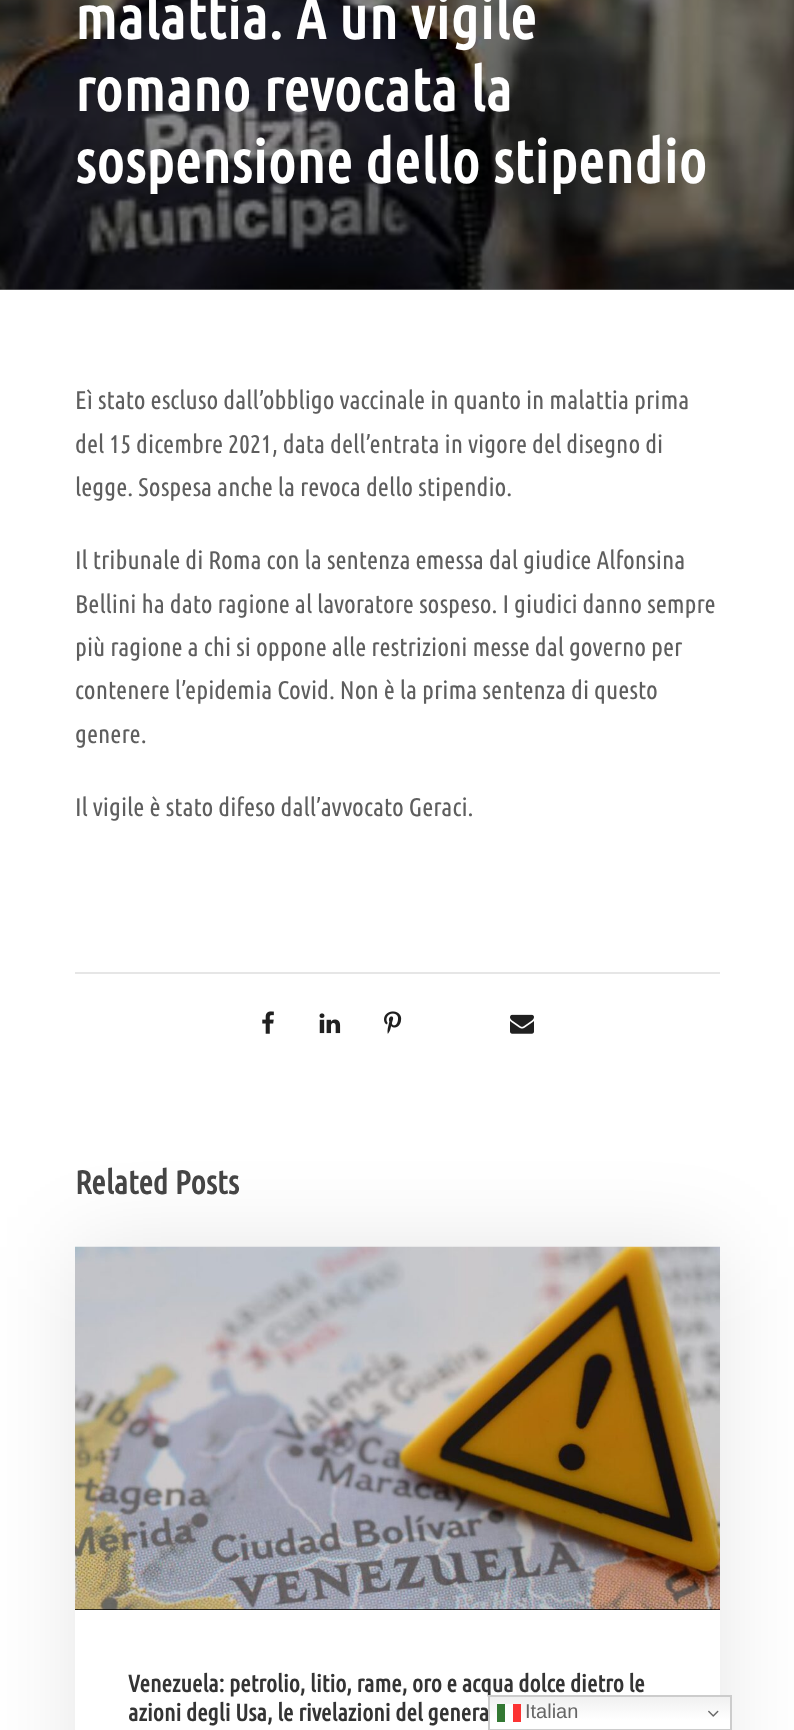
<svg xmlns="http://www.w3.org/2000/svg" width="794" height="1730">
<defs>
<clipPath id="clip1"><path d="M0 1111h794v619h-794zm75 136h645v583h-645z" clip-rule="evenodd"/></clipPath>
<linearGradient id="g1" gradientUnits="userSpaceOnUse" x1="610" y1="1695" x2="610" y2="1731"><stop offset="0" stop-color="#efefef"/><stop offset="0.7" stop-color="#fff"/></linearGradient>
</defs>
<rect width="100%" height="100%" fill="#fff"/>
<rect y="289" width="794" height="1" fill="#878787"/>
<image x="0" y="0" width="794" height="290" href="media/1.png"/>
<text x="75" y="39" style="font-family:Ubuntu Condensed;font-size:60px;font-weight:bold;letter-spacing:0.75px;fill:#fff">malattia. A un vigile</text>
<text x="75" y="111" style="font-family:Ubuntu Condensed;font-size:60px;font-weight:bold;letter-spacing:0.75px;fill:#fff">romano revocata la</text>
<text x="75" y="183" style="font-family:Ubuntu Condensed;font-size:60px;font-weight:bold;letter-spacing:0.75px;fill:#fff">sospensione dello stipendio</text>
<text x="75" y="409" style="font-family:Ubuntu Condensed;font-size:25.5px;fill:#5e5e5e">Eì stato escluso dall’obbligo vaccinale in quanto in malattia prima</text>
<text x="75" y="453" style="font-family:Ubuntu Condensed;font-size:25.5px;fill:#5e5e5e">del 15 dicembre 2021, data dell’entrata in vigore del disegno di</text>
<text x="75" y="496" style="font-family:Ubuntu Condensed;font-size:25.5px;fill:#5e5e5e">legge. Sospesa anche la revoca dello stipendio.</text>
<text x="75" y="569" style="font-family:Ubuntu Condensed;font-size:25.5px;fill:#5e5e5e">Il tribunale di Roma con la sentenza emessa dal giudice Alfonsina</text>
<text x="75" y="613" style="font-family:Ubuntu Condensed;font-size:25.5px;fill:#5e5e5e">Bellini ha dato ragione al lavoratore sospeso. I giudici danno sempre</text>
<text x="75" y="656" style="font-family:Ubuntu Condensed;font-size:25.5px;fill:#5e5e5e">più ragione a chi si oppone alle restrizioni messe dal governo per</text>
<text x="75" y="699" style="font-family:Ubuntu Condensed;font-size:25.5px;fill:#5e5e5e">contenere l’epidemia Covid. Non è la prima sentenza di questo</text>
<text x="75" y="743" style="font-family:Ubuntu Condensed;font-size:25.5px;fill:#5e5e5e">genere.</text>
<text x="75" y="816" style="font-family:Ubuntu Condensed;font-size:25.5px;fill:#5e5e5e">Il vigile è stato difeso dall’avvocato Geraci.</text>
<rect x="75" y="972" width="645" height="2" fill="#e6e6e6"/>
<image x="262" y="1011" width="12" height="23" href="media/2.png"/>
<image x="319" y="1013" width="22" height="21" href="media/3.png"/>
<image x="384" y="1011" width="18" height="23" href="media/4.png"/>
<image x="510" y="1014" width="24" height="20" href="media/5.png"/>
<text x="75" y="1194" style="font-family:Ubuntu Condensed;font-size:33px;font-weight:bold;fill:#464646">Related Posts</text>
<g clip-path="url(#clip1)">
<rect x="75" y="1247" width="645" height="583" fill="#0000001a" filter="blur(45px)"/>
</g>
<rect x="75" y="1609" width="645" height="1" fill="#000"/>
<image x="75" y="1246" width="645" height="364" href="media/6.png"/>
<text x="128" y="1692" style="font-family:Ubuntu Condensed;font-size:24px;font-weight:bold;fill:#343434">Venezuela: petrolio, litio, rame, oro e acqua dolce dietro le</text>
<text x="128" y="1721" style="font-family:Ubuntu Condensed;font-size:24px;font-weight:bold;fill:#343434">azioni degli Usa, le rivelazioni del genera</text>
<rect x="490" y="1697" width="240" height="32" fill="url(#g1)"/>
<rect x="489" y="1696" width="242" height="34" fill="none" stroke="#ccc" stroke-width="2"/>
<rect x="497" y="1704" width="8" height="18" fill="#337833"/>
<rect x="505" y="1704" width="8" height="18" fill="#ffffffcc"/>
<rect x="513" y="1704" width="8" height="18" fill="#fc3333"/>
<text x="525" y="1718" style="font-family:Liberation Sans;font-size:20px;fill:#666">Italian</text>
<image x="708" y="1710" width="11" height="7" href="media/7.png"/>
</svg>
